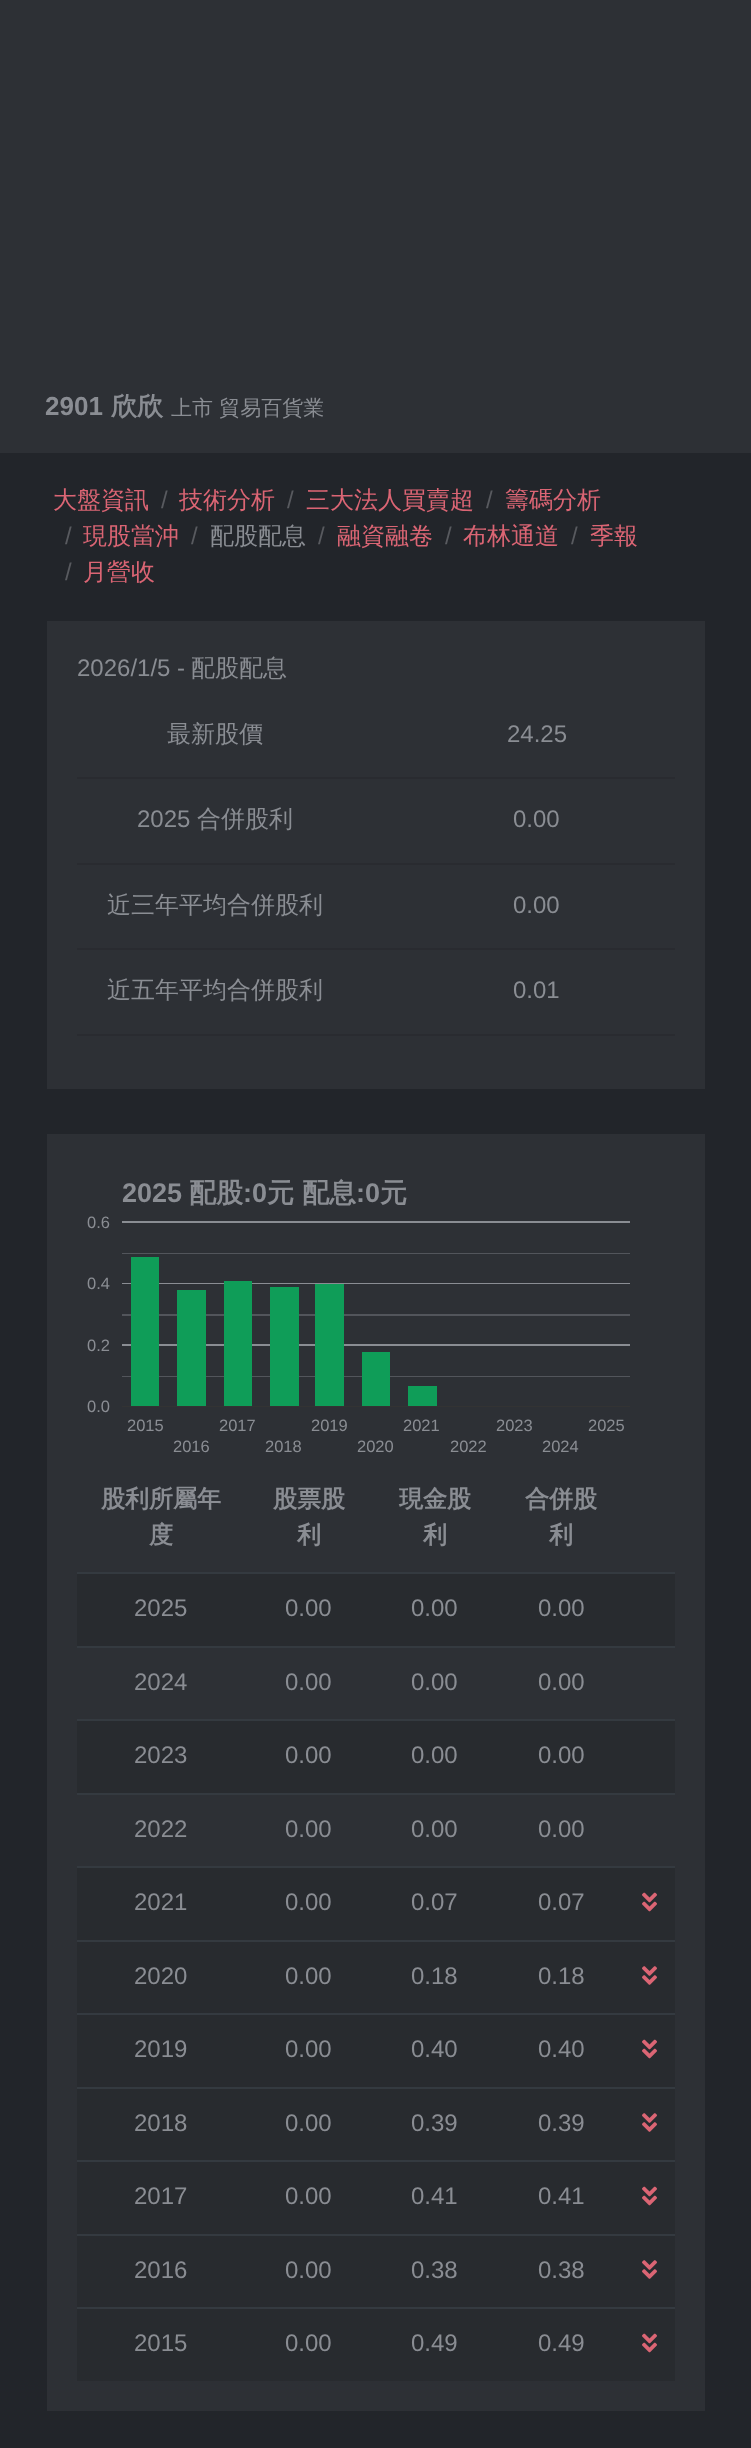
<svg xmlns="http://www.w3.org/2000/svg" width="751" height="2448">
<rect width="100%" height="100%" fill="#22252a"/>
<rect width="751" height="453" fill="#2d3035"/>
<text x="45" y="415" style="font-family:Liberation Sans;font-size:26px;font-weight:bold;fill:#8a8d93">2901</text>
<text x="111" y="415" style="font-family:WenQuanYi Zen Hei;font-size:26px;font-weight:bold;fill:#8a8d93">欣欣</text>
<text x="171" y="415" style="font-family:WenQuanYi Zen Hei;font-size:21px;font-weight:500;fill:#8a8d93">上市 貿易百貨業</text>
<text x="53" y="508" style="font-family:WenQuanYi Zen Hei;font-size:24px;font-weight:500;fill:#db6574">大盤資訊</text>
<text x="161" y="508" style="font-family:Liberation Sans;font-size:24px;fill:#585a5f">/</text>
<text x="179" y="508" style="font-family:WenQuanYi Zen Hei;font-size:24px;font-weight:500;fill:#db6574">技術分析</text>
<text x="287" y="508" style="font-family:Liberation Sans;font-size:24px;fill:#585a5f">/</text>
<text x="306" y="508" style="font-family:WenQuanYi Zen Hei;font-size:24px;font-weight:500;fill:#db6574">三大法人買賣超</text>
<text x="486" y="508" style="font-family:Liberation Sans;font-size:24px;fill:#585a5f">/</text>
<text x="505" y="508" style="font-family:WenQuanYi Zen Hei;font-size:24px;font-weight:500;fill:#db6574">籌碼分析</text>
<text x="65" y="544" style="font-family:Liberation Sans;font-size:24px;fill:#585a5f">/</text>
<text x="83" y="544" style="font-family:WenQuanYi Zen Hei;font-size:24px;font-weight:500;fill:#db6574">現股當沖</text>
<text x="191" y="544" style="font-family:Liberation Sans;font-size:24px;fill:#585a5f">/</text>
<text x="210" y="544" style="font-family:WenQuanYi Zen Hei;font-size:24px;font-weight:500;fill:#8a8d93">配股配息</text>
<text x="318" y="544" style="font-family:Liberation Sans;font-size:24px;fill:#585a5f">/</text>
<text x="337" y="544" style="font-family:WenQuanYi Zen Hei;font-size:24px;font-weight:500;fill:#db6574">融資融卷</text>
<text x="445" y="544" style="font-family:Liberation Sans;font-size:24px;fill:#585a5f">/</text>
<text x="463" y="544" style="font-family:WenQuanYi Zen Hei;font-size:24px;font-weight:500;fill:#db6574">布林通道</text>
<text x="571" y="544" style="font-family:Liberation Sans;font-size:24px;fill:#585a5f">/</text>
<text x="590" y="544" style="font-family:WenQuanYi Zen Hei;font-size:24px;font-weight:500;fill:#db6574">季報</text>
<text x="65" y="580" style="font-family:Liberation Sans;font-size:24px;fill:#585a5f">/</text>
<text x="83" y="580" style="font-family:WenQuanYi Zen Hei;font-size:24px;font-weight:500;fill:#db6574">月營收</text>
<rect x="47" y="621" width="658" height="468" fill="#2d3035"/>
<text x="77" y="676" style="font-family:Liberation Sans;font-size:24px;fill:#8a8d93">2026/1/5 -</text>
<text x="191" y="676" style="font-family:WenQuanYi Zen Hei;font-size:24px;font-weight:500;fill:#8a8d93">配股配息</text>
<text x="167" y="742" style="font-family:WenQuanYi Zen Hei;font-size:24px;font-weight:500;fill:#8a8d93">最新股價</text>
<text x="507" y="742" style="font-family:Liberation Sans;font-size:24px;fill:#8a8d93">24.25</text>
<rect x="77" y="777" width="598" height="2" fill="#292b30"/>
<text x="137" y="827" style="font-family:Liberation Sans;font-size:24px;fill:#8a8d93">2025</text>
<text x="197" y="827" style="font-family:WenQuanYi Zen Hei;font-size:24px;font-weight:500;fill:#8a8d93">合併股利</text>
<text x="513" y="827" style="font-family:Liberation Sans;font-size:24px;fill:#8a8d93">0.00</text>
<rect x="77" y="863" width="598" height="2" fill="#292b30"/>
<text x="107" y="913" style="font-family:WenQuanYi Zen Hei;font-size:24px;font-weight:500;fill:#8a8d93">近三年平均合併股利</text>
<text x="513" y="913" style="font-family:Liberation Sans;font-size:24px;fill:#8a8d93">0.00</text>
<rect x="77" y="948" width="598" height="2" fill="#292b30"/>
<text x="107" y="998" style="font-family:WenQuanYi Zen Hei;font-size:24px;font-weight:500;fill:#8a8d93">近五年平均合併股利</text>
<text x="513" y="998" style="font-family:Liberation Sans;font-size:24px;fill:#8a8d93">0.01</text>
<rect x="77" y="1034" width="598" height="2" fill="#292b30"/>
<rect x="47" y="1134" width="658" height="1277" fill="#2d3035"/>
<text x="122" y="1202" style="font-family:Liberation Sans;font-size:27px;font-weight:bold;fill:#8a8d93">2025</text>
<text x="189" y="1202" style="font-family:WenQuanYi Zen Hei;font-size:27px;font-weight:bold;fill:#8a8d93">配股</text>
<text x="243" y="1202" style="font-family:Liberation Sans;font-size:27px;font-weight:bold;fill:#8a8d93">:0</text>
<text x="267" y="1202" style="font-family:WenQuanYi Zen Hei;font-size:27px;font-weight:bold;fill:#8a8d93">元</text>
<text x="302" y="1202" style="font-family:WenQuanYi Zen Hei;font-size:27px;font-weight:bold;fill:#8a8d93">配息</text>
<text x="356" y="1202" style="font-family:Liberation Sans;font-size:27px;font-weight:bold;fill:#8a8d93">:0</text>
<text x="380" y="1202" style="font-family:WenQuanYi Zen Hei;font-size:27px;font-weight:bold;fill:#8a8d93">元</text>
<text x="87" y="1228" style="font-family:Liberation Sans;font-size:16.5px;fill:#8a8d93">0.6</text>
<image x="122" y="1221" width="508" height="186" href="media/1.png"/>
<text x="87" y="1289" style="font-family:Liberation Sans;font-size:16.5px;fill:#8a8d93">0.4</text>
<text x="87" y="1351" style="font-family:Liberation Sans;font-size:16.5px;fill:#8a8d93">0.2</text>
<text x="87" y="1412" style="font-family:Liberation Sans;font-size:16.5px;fill:#8a8d93">0.0</text>
<text x="127" y="1431" style="font-family:Liberation Sans;font-size:16.5px;fill:#8a8d93">2015</text>
<text x="219" y="1431" style="font-family:Liberation Sans;font-size:16.5px;fill:#8a8d93">2017</text>
<text x="311" y="1431" style="font-family:Liberation Sans;font-size:16.5px;fill:#8a8d93">2019</text>
<text x="403" y="1431" style="font-family:Liberation Sans;font-size:16.5px;fill:#8a8d93">2021</text>
<text x="496" y="1431" style="font-family:Liberation Sans;font-size:16.5px;fill:#8a8d93">2023</text>
<text x="588" y="1431" style="font-family:Liberation Sans;font-size:16.5px;fill:#8a8d93">2025</text>
<text x="173" y="1452" style="font-family:Liberation Sans;font-size:16.5px;fill:#8a8d93">2016</text>
<text x="265" y="1452" style="font-family:Liberation Sans;font-size:16.5px;fill:#8a8d93">2018</text>
<text x="357" y="1452" style="font-family:Liberation Sans;font-size:16.5px;fill:#8a8d93">2020</text>
<text x="450" y="1452" style="font-family:Liberation Sans;font-size:16.5px;fill:#8a8d93">2022</text>
<text x="542" y="1452" style="font-family:Liberation Sans;font-size:16.5px;fill:#8a8d93">2024</text>
<text x="101" y="1507" style="font-family:WenQuanYi Zen Hei;font-size:24px;font-weight:bold;fill:#8a8d93">股利所屬年</text>
<text x="149" y="1543" style="font-family:WenQuanYi Zen Hei;font-size:24px;font-weight:bold;fill:#8a8d93">度</text>
<text x="273" y="1507" style="font-family:WenQuanYi Zen Hei;font-size:24px;font-weight:bold;fill:#8a8d93">股票股</text>
<text x="297" y="1543" style="font-family:WenQuanYi Zen Hei;font-size:24px;font-weight:bold;fill:#8a8d93">利</text>
<text x="399" y="1507" style="font-family:WenQuanYi Zen Hei;font-size:24px;font-weight:bold;fill:#8a8d93">現金股</text>
<text x="423" y="1543" style="font-family:WenQuanYi Zen Hei;font-size:24px;font-weight:bold;fill:#8a8d93">利</text>
<text x="525" y="1507" style="font-family:WenQuanYi Zen Hei;font-size:24px;font-weight:bold;fill:#8a8d93">合併股</text>
<text x="549" y="1543" style="font-family:WenQuanYi Zen Hei;font-size:24px;font-weight:bold;fill:#8a8d93">利</text>
<rect x="77" y="1574" width="598" height="72" fill="#282b2f"/>
<rect x="77" y="1572" width="598" height="2" fill="#343a40"/>
<text x="134" y="1616" style="font-family:Liberation Sans;font-size:24px;fill:#8a8d93">2025</text>
<text x="285" y="1616" style="font-family:Liberation Sans;font-size:24px;fill:#8a8d93">0.00</text>
<text x="411" y="1616" style="font-family:Liberation Sans;font-size:24px;fill:#8a8d93">0.00</text>
<text x="538" y="1616" style="font-family:Liberation Sans;font-size:24px;fill:#8a8d93">0.00</text>
<rect x="77" y="1646" width="598" height="2" fill="#343a40"/>
<text x="134" y="1690" style="font-family:Liberation Sans;font-size:24px;fill:#8a8d93">2024</text>
<text x="285" y="1690" style="font-family:Liberation Sans;font-size:24px;fill:#8a8d93">0.00</text>
<text x="411" y="1690" style="font-family:Liberation Sans;font-size:24px;fill:#8a8d93">0.00</text>
<text x="538" y="1690" style="font-family:Liberation Sans;font-size:24px;fill:#8a8d93">0.00</text>
<rect x="77" y="1721" width="598" height="72" fill="#282b2f"/>
<rect x="77" y="1719" width="598" height="2" fill="#343a40"/>
<text x="134" y="1763" style="font-family:Liberation Sans;font-size:24px;fill:#8a8d93">2023</text>
<text x="285" y="1763" style="font-family:Liberation Sans;font-size:24px;fill:#8a8d93">0.00</text>
<text x="411" y="1763" style="font-family:Liberation Sans;font-size:24px;fill:#8a8d93">0.00</text>
<text x="538" y="1763" style="font-family:Liberation Sans;font-size:24px;fill:#8a8d93">0.00</text>
<rect x="77" y="1793" width="598" height="2" fill="#343a40"/>
<text x="134" y="1837" style="font-family:Liberation Sans;font-size:24px;fill:#8a8d93">2022</text>
<text x="285" y="1837" style="font-family:Liberation Sans;font-size:24px;fill:#8a8d93">0.00</text>
<text x="411" y="1837" style="font-family:Liberation Sans;font-size:24px;fill:#8a8d93">0.00</text>
<text x="538" y="1837" style="font-family:Liberation Sans;font-size:24px;fill:#8a8d93">0.00</text>
<rect x="77" y="1868" width="598" height="72" fill="#282b2f"/>
<rect x="77" y="1866" width="598" height="2" fill="#343a40"/>
<image x="642" y="1892" width="15" height="20" href="media/2.png"/>
<text x="134" y="1910" style="font-family:Liberation Sans;font-size:24px;fill:#8a8d93">2021</text>
<text x="285" y="1910" style="font-family:Liberation Sans;font-size:24px;fill:#8a8d93">0.00</text>
<text x="411" y="1910" style="font-family:Liberation Sans;font-size:24px;fill:#8a8d93">0.07</text>
<text x="538" y="1910" style="font-family:Liberation Sans;font-size:24px;fill:#8a8d93">0.07</text>
<rect x="77" y="1942" width="598" height="71" fill="#282b2f"/>
<rect x="77" y="1940" width="598" height="2" fill="#343a40"/>
<image x="642" y="1966" width="15" height="19" href="media/3.png"/>
<text x="134" y="1984" style="font-family:Liberation Sans;font-size:24px;fill:#8a8d93">2020</text>
<text x="285" y="1984" style="font-family:Liberation Sans;font-size:24px;fill:#8a8d93">0.00</text>
<text x="411" y="1984" style="font-family:Liberation Sans;font-size:24px;fill:#8a8d93">0.18</text>
<text x="538" y="1984" style="font-family:Liberation Sans;font-size:24px;fill:#8a8d93">0.18</text>
<rect x="77" y="2015" width="598" height="72" fill="#282b2f"/>
<rect x="77" y="2013" width="598" height="2" fill="#343a40"/>
<image x="642" y="2039" width="15" height="20" href="media/2.png"/>
<text x="134" y="2057" style="font-family:Liberation Sans;font-size:24px;fill:#8a8d93">2019</text>
<text x="285" y="2057" style="font-family:Liberation Sans;font-size:24px;fill:#8a8d93">0.00</text>
<text x="411" y="2057" style="font-family:Liberation Sans;font-size:24px;fill:#8a8d93">0.40</text>
<text x="538" y="2057" style="font-family:Liberation Sans;font-size:24px;fill:#8a8d93">0.40</text>
<rect x="77" y="2089" width="598" height="71" fill="#282b2f"/>
<rect x="77" y="2087" width="598" height="2" fill="#343a40"/>
<image x="642" y="2113" width="15" height="19" href="media/3.png"/>
<text x="134" y="2131" style="font-family:Liberation Sans;font-size:24px;fill:#8a8d93">2018</text>
<text x="285" y="2131" style="font-family:Liberation Sans;font-size:24px;fill:#8a8d93">0.00</text>
<text x="411" y="2131" style="font-family:Liberation Sans;font-size:24px;fill:#8a8d93">0.39</text>
<text x="538" y="2131" style="font-family:Liberation Sans;font-size:24px;fill:#8a8d93">0.39</text>
<rect x="77" y="2162" width="598" height="72" fill="#282b2f"/>
<rect x="77" y="2160" width="598" height="2" fill="#343a40"/>
<image x="642" y="2186" width="15" height="20" href="media/2.png"/>
<text x="134" y="2204" style="font-family:Liberation Sans;font-size:24px;fill:#8a8d93">2017</text>
<text x="285" y="2204" style="font-family:Liberation Sans;font-size:24px;fill:#8a8d93">0.00</text>
<text x="411" y="2204" style="font-family:Liberation Sans;font-size:24px;fill:#8a8d93">0.41</text>
<text x="538" y="2204" style="font-family:Liberation Sans;font-size:24px;fill:#8a8d93">0.41</text>
<rect x="77" y="2236" width="598" height="71" fill="#282b2f"/>
<rect x="77" y="2234" width="598" height="2" fill="#343a40"/>
<image x="642" y="2260" width="15" height="19" href="media/3.png"/>
<text x="134" y="2278" style="font-family:Liberation Sans;font-size:24px;fill:#8a8d93">2016</text>
<text x="285" y="2278" style="font-family:Liberation Sans;font-size:24px;fill:#8a8d93">0.00</text>
<text x="411" y="2278" style="font-family:Liberation Sans;font-size:24px;fill:#8a8d93">0.38</text>
<text x="538" y="2278" style="font-family:Liberation Sans;font-size:24px;fill:#8a8d93">0.38</text>
<rect x="77" y="2309" width="598" height="72" fill="#282b2f"/>
<rect x="77" y="2307" width="598" height="2" fill="#343a40"/>
<image x="642" y="2333" width="15" height="20" href="media/2.png"/>
<text x="134" y="2351" style="font-family:Liberation Sans;font-size:24px;fill:#8a8d93">2015</text>
<text x="285" y="2351" style="font-family:Liberation Sans;font-size:24px;fill:#8a8d93">0.00</text>
<text x="411" y="2351" style="font-family:Liberation Sans;font-size:24px;fill:#8a8d93">0.49</text>
<text x="538" y="2351" style="font-family:Liberation Sans;font-size:24px;fill:#8a8d93">0.49</text>
</svg>
